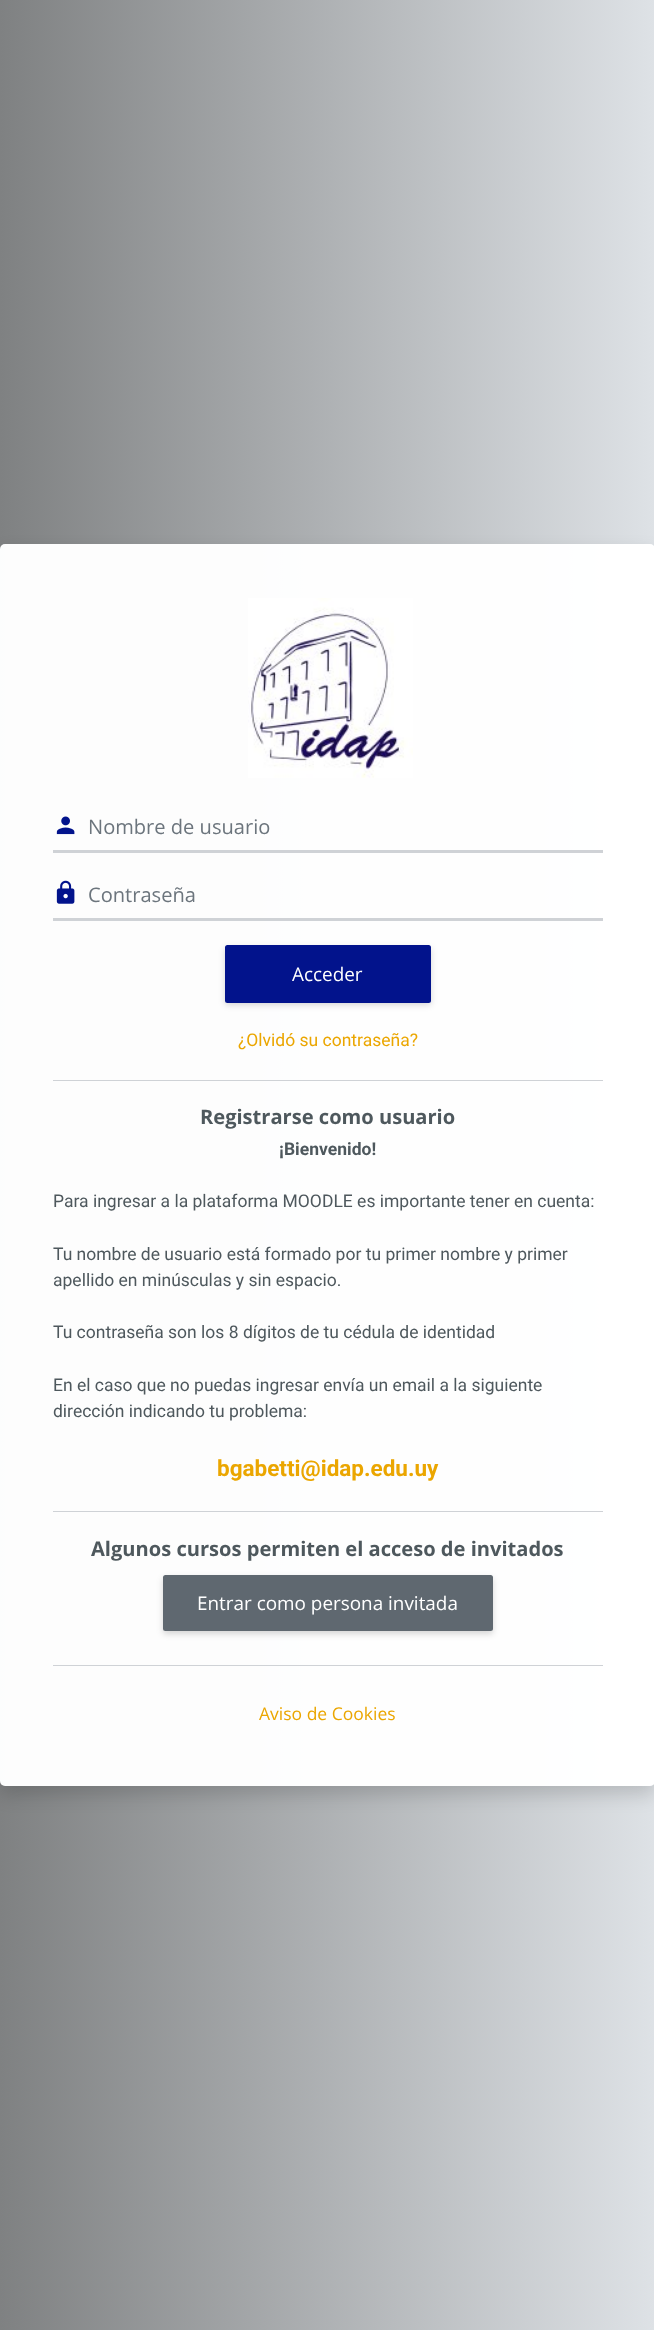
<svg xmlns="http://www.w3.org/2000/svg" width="654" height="2330">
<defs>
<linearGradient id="g1" gradientUnits="userSpaceOnUse" x1="0" y1="1165" x2="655" y2="1165"><stop offset="0" stop-color="#7f8182"/><stop offset="1" stop-color="#dee2e6"/></linearGradient>
<clipPath id="clip1"><path d="M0 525h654v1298h-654zm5 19h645c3 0 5 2 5 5v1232c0 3-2 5-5 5h-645c-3 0-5-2-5-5v-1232c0-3 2-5 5-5z" clip-rule="evenodd"/></clipPath>
</defs>
<rect width="100%" height="100%" fill="#fff"/>
<rect width="654" height="2330" fill="url(#g1)"/>
<g clip-path="url(#clip1)">
<rect y="553" width="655" height="1242" rx="5" fill="#00000026" filter="blur(9px)"/>
</g>
<rect y="544" width="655" height="1242" rx="5" fill="#fffffffa"/>
<image x="248" y="598" width="165" height="180" href="media/1.png"/>
<image x="56" y="816" width="19" height="19" href="media/2.png"/>
<rect x="53" y="850" width="550" height="3" fill="#cfd2d6"/>
<text x="88" y="834" style="font-family:Open Sans;font-size:20.1px;fill:#6c757d">Nombre de usuario</text>
<image x="56" y="880" width="19" height="24" href="media/3.png"/>
<rect x="53" y="918" width="550" height="3" fill="#cfd2d6"/>
<text x="88" y="902" style="font-family:Open Sans;font-size:20.1px;fill:#6c757d">Contraseña</text>
<rect x="225" y="948" width="206" height="57" rx="2.5" fill="#00000029" filter="blur(3px)"/>
<rect x="225" y="945" width="206" height="58" rx="2.5" fill="#02138c"/>
<text x="292" y="981" style="font-family:Open Sans;font-size:18.9px;fill:#fff">Acceder</text>
<text x="238" y="1046" style="font-family:Roboto;font-size:17.5px;fill:#eba600">¿Olvidó su contraseña?</text>
<rect x="53" y="1080" width="550" height="1" fill="#cfd2d6"/>
<text x="200" y="1124" style="font-family:Open Sans;font-size:20.1px;font-weight:bold;fill:#4e585d">Registrarse como usuario</text>
<text x="279" y="1155" style="font-family:Roboto;font-size:17.5px;font-weight:bold;fill:#4e585d">¡Bienvenido!</text>
<text x="53" y="1207" style="font-family:Roboto;font-size:17.5px;fill:#4e585d">Para ingresar a la plataforma MOODLE es importante tener en cuenta:</text>
<text x="53" y="1260" style="font-family:Roboto;font-size:17.5px;fill:#4e585d">Tu nombre de usuario está formado por tu primer nombre y primer</text>
<text x="53" y="1286" style="font-family:Roboto;font-size:17.5px;fill:#4e585d">apellido en minúsculas y sin espacio.</text>
<text x="53" y="1338" style="font-family:Roboto;font-size:17.5px;fill:#4e585d">Tu contraseña son los 8 dígitos de tu cédula de identidad</text>
<text x="53" y="1391" style="font-family:Roboto;font-size:17.5px;fill:#4e585d">En el caso que no puedas ingresar envía un email a la siguiente</text>
<text x="53" y="1417" style="font-family:Roboto;font-size:17.5px;fill:#4e585d">dirección indicando tu problema:</text>
<text x="217" y="1476" style="font-family:Roboto;font-size:22.5px;font-weight:bold;fill:#eba600">bgabetti@idap.edu.uy</text>
<rect x="53" y="1511" width="550" height="1" fill="#cfd2d6"/>
<text x="91" y="1556" style="font-family:Open Sans;font-size:20.1px;font-weight:bold;fill:#4e585d">Algunos cursos permiten el acceso de invitados</text>
<rect x="163" y="1578" width="330" height="56" rx="2.5" fill="#00000029" filter="blur(3px)"/>
<rect x="163" y="1575" width="330" height="56" rx="2.5" fill="#5f6870"/>
<text x="197" y="1610" style="font-family:Open Sans;font-size:18.9px;fill:#fff">Entrar como persona invitada</text>
<rect x="53" y="1665" width="550" height="1" fill="#cfd2d6"/>
<text x="259" y="1720" style="font-family:Open Sans;font-size:17.5px;fill:#eba600">Aviso de Cookies</text>
</svg>
